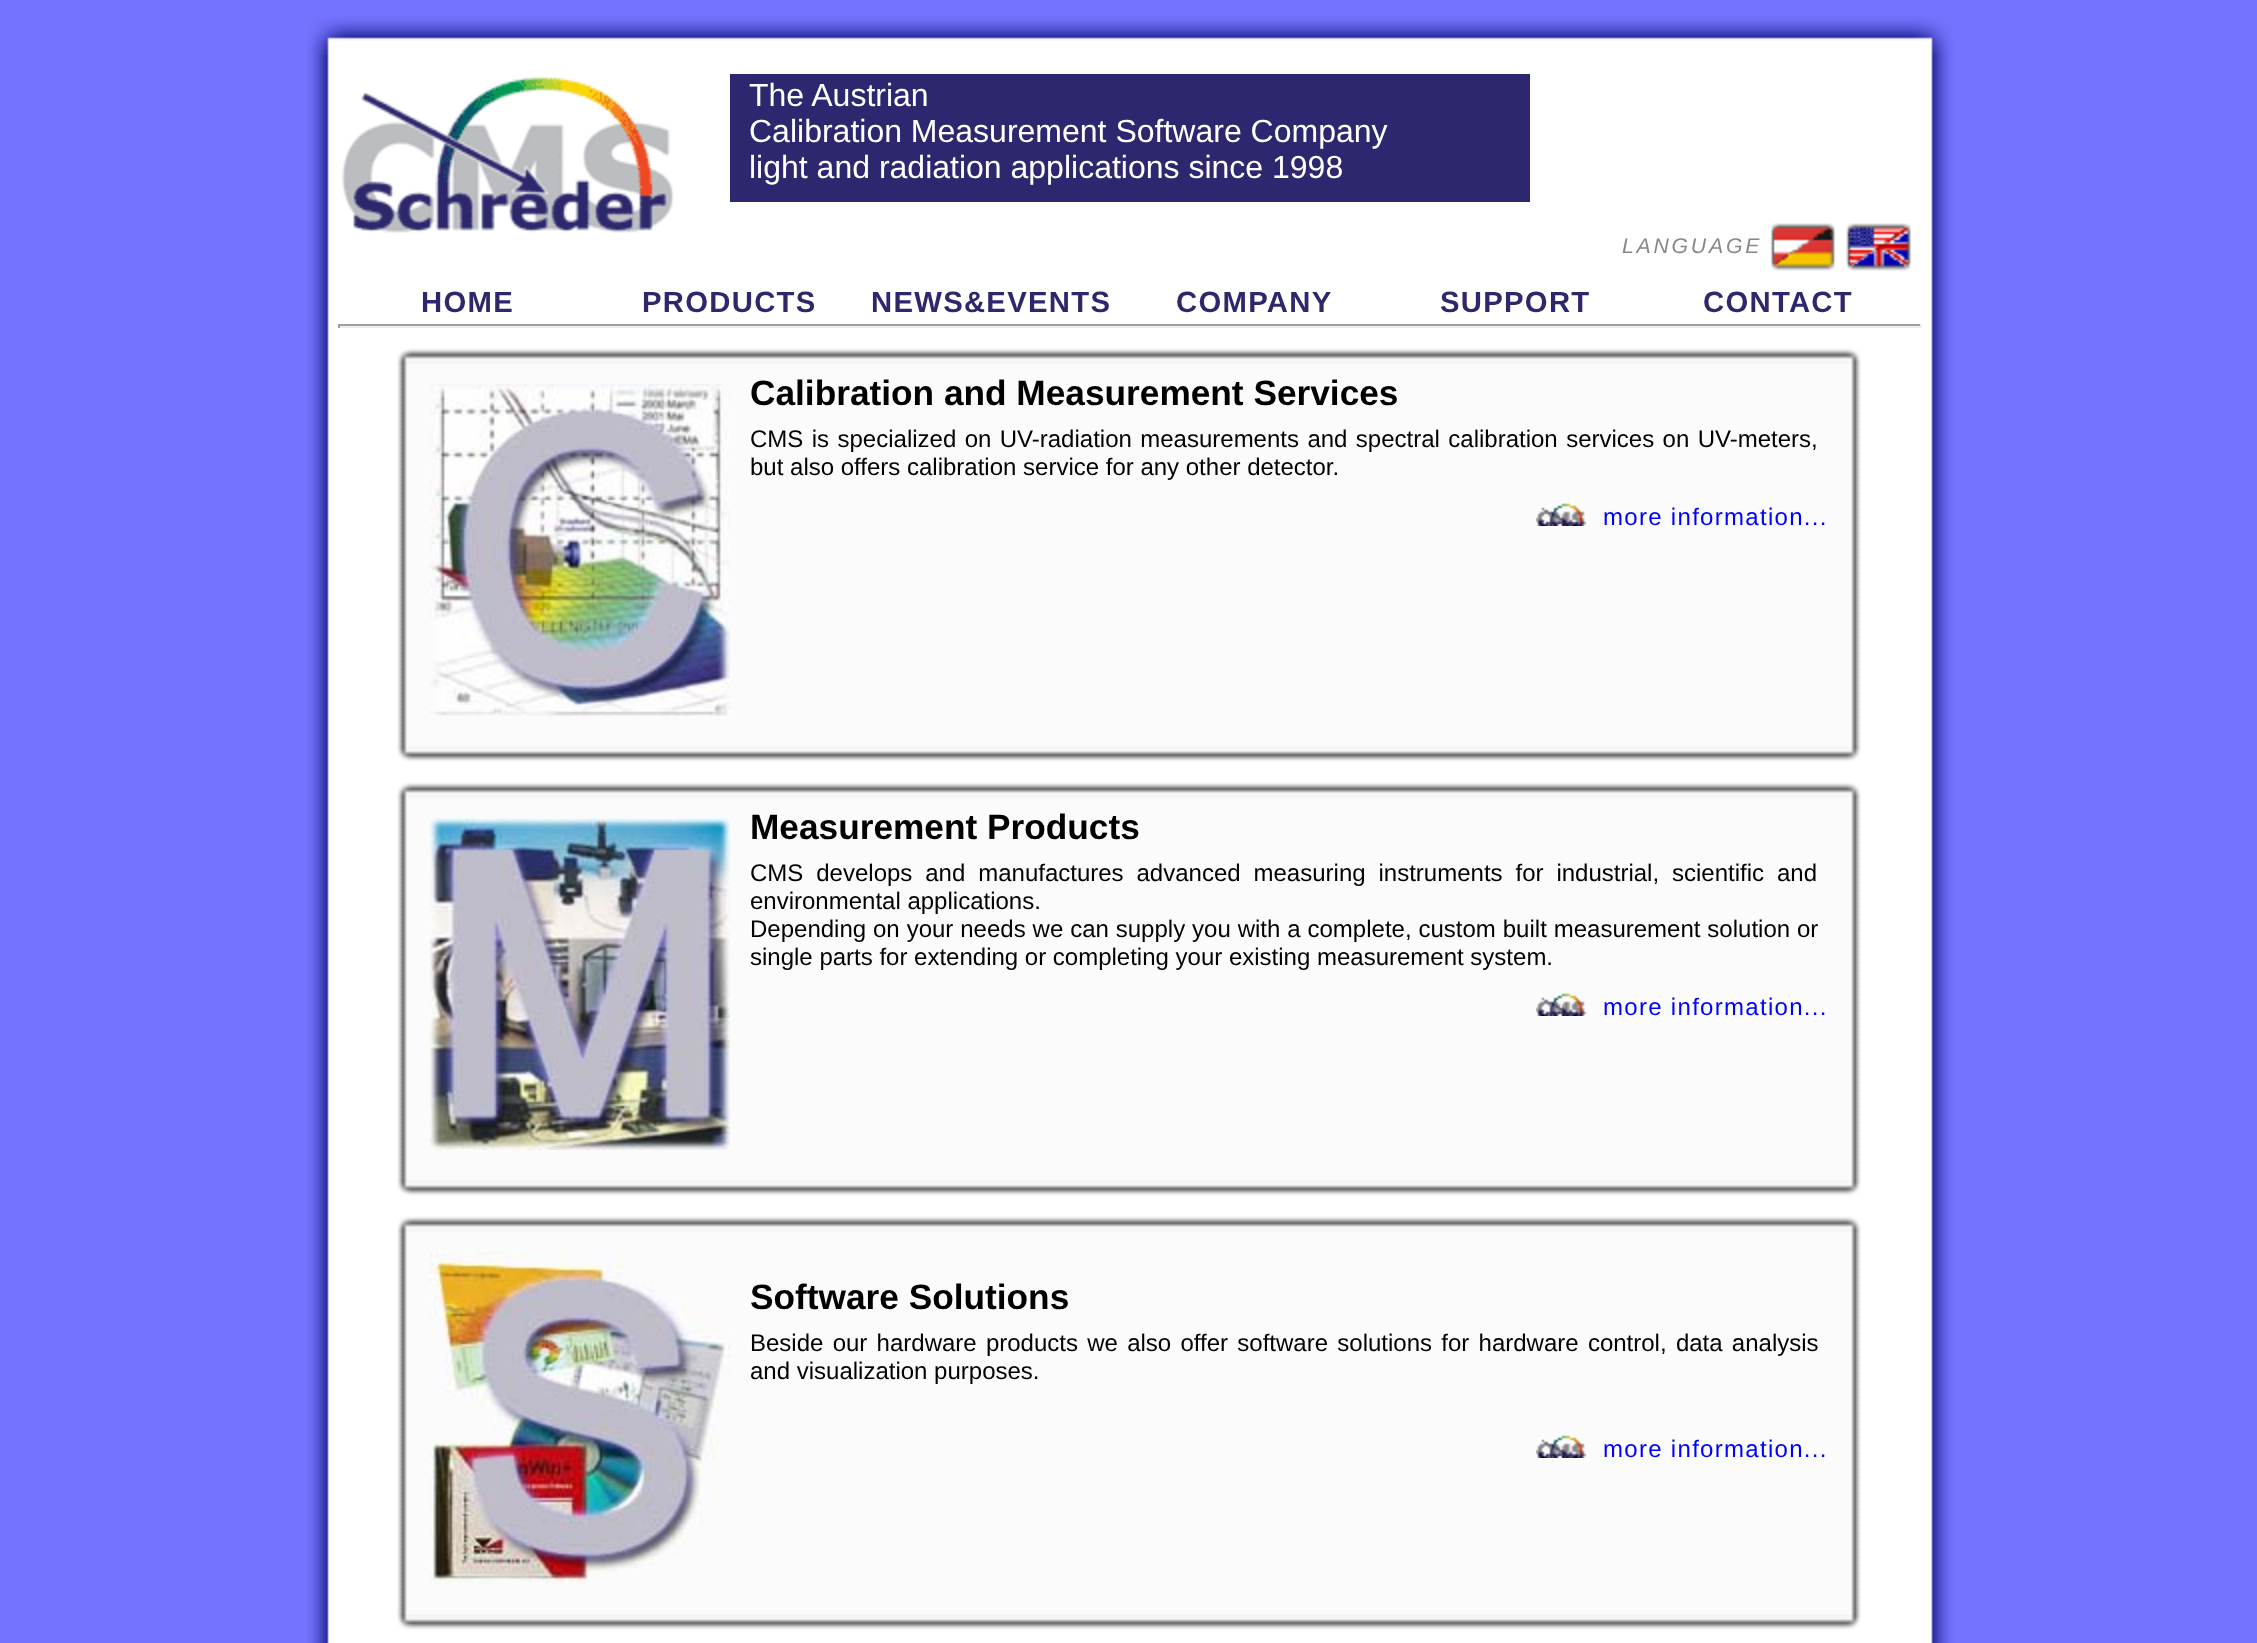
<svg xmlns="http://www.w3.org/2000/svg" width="2257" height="1643">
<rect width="100%" height="100%" fill="#7373ff"/>
<image x="307" y="54" width="1646" height="1589" href="media/1.png"/>
<image x="307" y="16" width="1646" height="38" href="media/2.png"/>
<image x="341" y="77" width="333" height="156" href="media/3.png"/>
<rect x="730" y="74" width="800" height="128" fill="#2d276f"/>
<text x="749" y="106" style="font-family:Liberation Sans;font-size:32px;fill:#fff">The Austrian</text>
<text x="749" y="142" style="font-family:Liberation Sans;font-size:32px;fill:#fff">Calibration Measurement Software Company</text>
<text x="749" y="178" style="font-family:Liberation Sans;font-size:32px;fill:#fff">light and radiation applications since 1998</text>
<text x="1622" y="253" style="font-family:Liberation Sans;font-size:21.25px;font-style:italic;letter-spacing:2.75px;fill:#888">LANGUAGE</text>
<image x="1770" y="223" width="66" height="48" href="media/4.png"/>
<image x="1846" y="223" width="66" height="48" href="media/5.png"/>
<text x="421" y="312" style="font-family:Liberation Sans;font-size:29.25px;font-weight:bold;letter-spacing:1.3px;fill:#2d276c">HOME</text>
<text x="642" y="312" style="font-family:Liberation Sans;font-size:29.25px;font-weight:bold;letter-spacing:1.3px;fill:#2d276c">PRODUCTS</text>
<text x="871" y="312" style="font-family:Liberation Sans;font-size:29.25px;font-weight:bold;letter-spacing:1.3px;fill:#2d276c">NEWS&amp;EVENTS</text>
<text x="1176" y="312" style="font-family:Liberation Sans;font-size:29.25px;font-weight:bold;letter-spacing:1.3px;fill:#2d276c">COMPANY</text>
<text x="1440" y="312" style="font-family:Liberation Sans;font-size:29.25px;font-weight:bold;letter-spacing:1.3px;fill:#2d276c">SUPPORT</text>
<text x="1703" y="312" style="font-family:Liberation Sans;font-size:29.25px;font-weight:bold;letter-spacing:1.3px;fill:#2d276c">CONTACT</text>
<rect x="338" y="324" width="1584" height="2" fill="#9f9f9f"/>
<rect x="1920" y="324" width="2" height="4" fill="#eee"/>
<rect x="338" y="326" width="1584" height="2" fill="#eee"/>
<rect x="338" y="324" width="2" height="4" fill="#9f9f9f"/>
<image x="397" y="348" width="1464" height="16" href="media/6.png"/>
<image x="397" y="364" width="1464" height="382" href="media/7.png"/>
<image x="430" y="384" width="300" height="332" href="media/8.png"/>
<text x="750" y="405" style="font-family:Liberation Sans;font-size:35.25px;font-weight:bold;fill:#000">Calibration and Measurement Services</text>
<text x="750" y="447" word-spacing="1.75" style="font-family:Liberation Sans;font-size:24px;fill:#000">CMS is specialized on UV-radiation measurements and spectral calibration services on UV-meters,</text>
<text x="750" y="475" style="font-family:Liberation Sans;font-size:24px;fill:#000">but also offers calibration service for any other detector.</text>
<image x="1536" y="503" width="51" height="23" href="media/9.png"/>
<text x="1603" y="525" style="font-family:Liberation Sans;font-size:24px;letter-spacing:1.3px;fill:#00f">more information...</text>
<image x="397" y="746" width="1464" height="16" href="media/10.png"/>
<image x="397" y="782" width="1464" height="16" href="media/6.png"/>
<image x="397" y="798" width="1464" height="382" href="media/7.png"/>
<image x="430" y="818" width="300" height="332" href="media/11.png"/>
<text x="750" y="839" style="font-family:Liberation Sans;font-size:35.25px;font-weight:bold;fill:#000">Measurement Products</text>
<text x="750" y="881" word-spacing="6.25" style="font-family:Liberation Sans;font-size:24px;fill:#000">CMS develops and manufactures advanced measuring instruments for industrial, scientific and</text>
<text x="750" y="909" style="font-family:Liberation Sans;font-size:24px;fill:#000">environmental applications.</text>
<text x="750" y="937" word-spacing="0.25" style="font-family:Liberation Sans;font-size:24px;fill:#000">Depending on your needs we can supply you with a complete, custom built measurement solution or</text>
<text x="750" y="965" style="font-family:Liberation Sans;font-size:24px;fill:#000">single parts for extending or completing your existing measurement system.</text>
<image x="1536" y="993" width="51" height="23" href="media/9.png"/>
<text x="1603" y="1015" style="font-family:Liberation Sans;font-size:24px;letter-spacing:1.3px;fill:#00f">more information...</text>
<image x="397" y="1180" width="1464" height="16" href="media/10.png"/>
<image x="397" y="1216" width="1464" height="16" href="media/6.png"/>
<image x="397" y="1232" width="1464" height="382" href="media/7.png"/>
<image x="430" y="1252" width="300" height="332" href="media/12.png"/>
<text x="750" y="1309" style="font-family:Liberation Sans;font-size:35.25px;font-weight:bold;fill:#000">Software Solutions</text>
<text x="750" y="1351" word-spacing="2.6" style="font-family:Liberation Sans;font-size:24px;fill:#000">Beside our hardware products we also offer software solutions for hardware control, data analysis</text>
<text x="750" y="1379" style="font-family:Liberation Sans;font-size:24px;fill:#000">and visualization purposes.</text>
<image x="1536" y="1435" width="51" height="23" href="media/9.png"/>
<text x="1603" y="1457" style="font-family:Liberation Sans;font-size:24px;letter-spacing:1.3px;fill:#00f">more information...</text>
<image x="397" y="1614" width="1464" height="16" href="media/10.png"/>
</svg>
